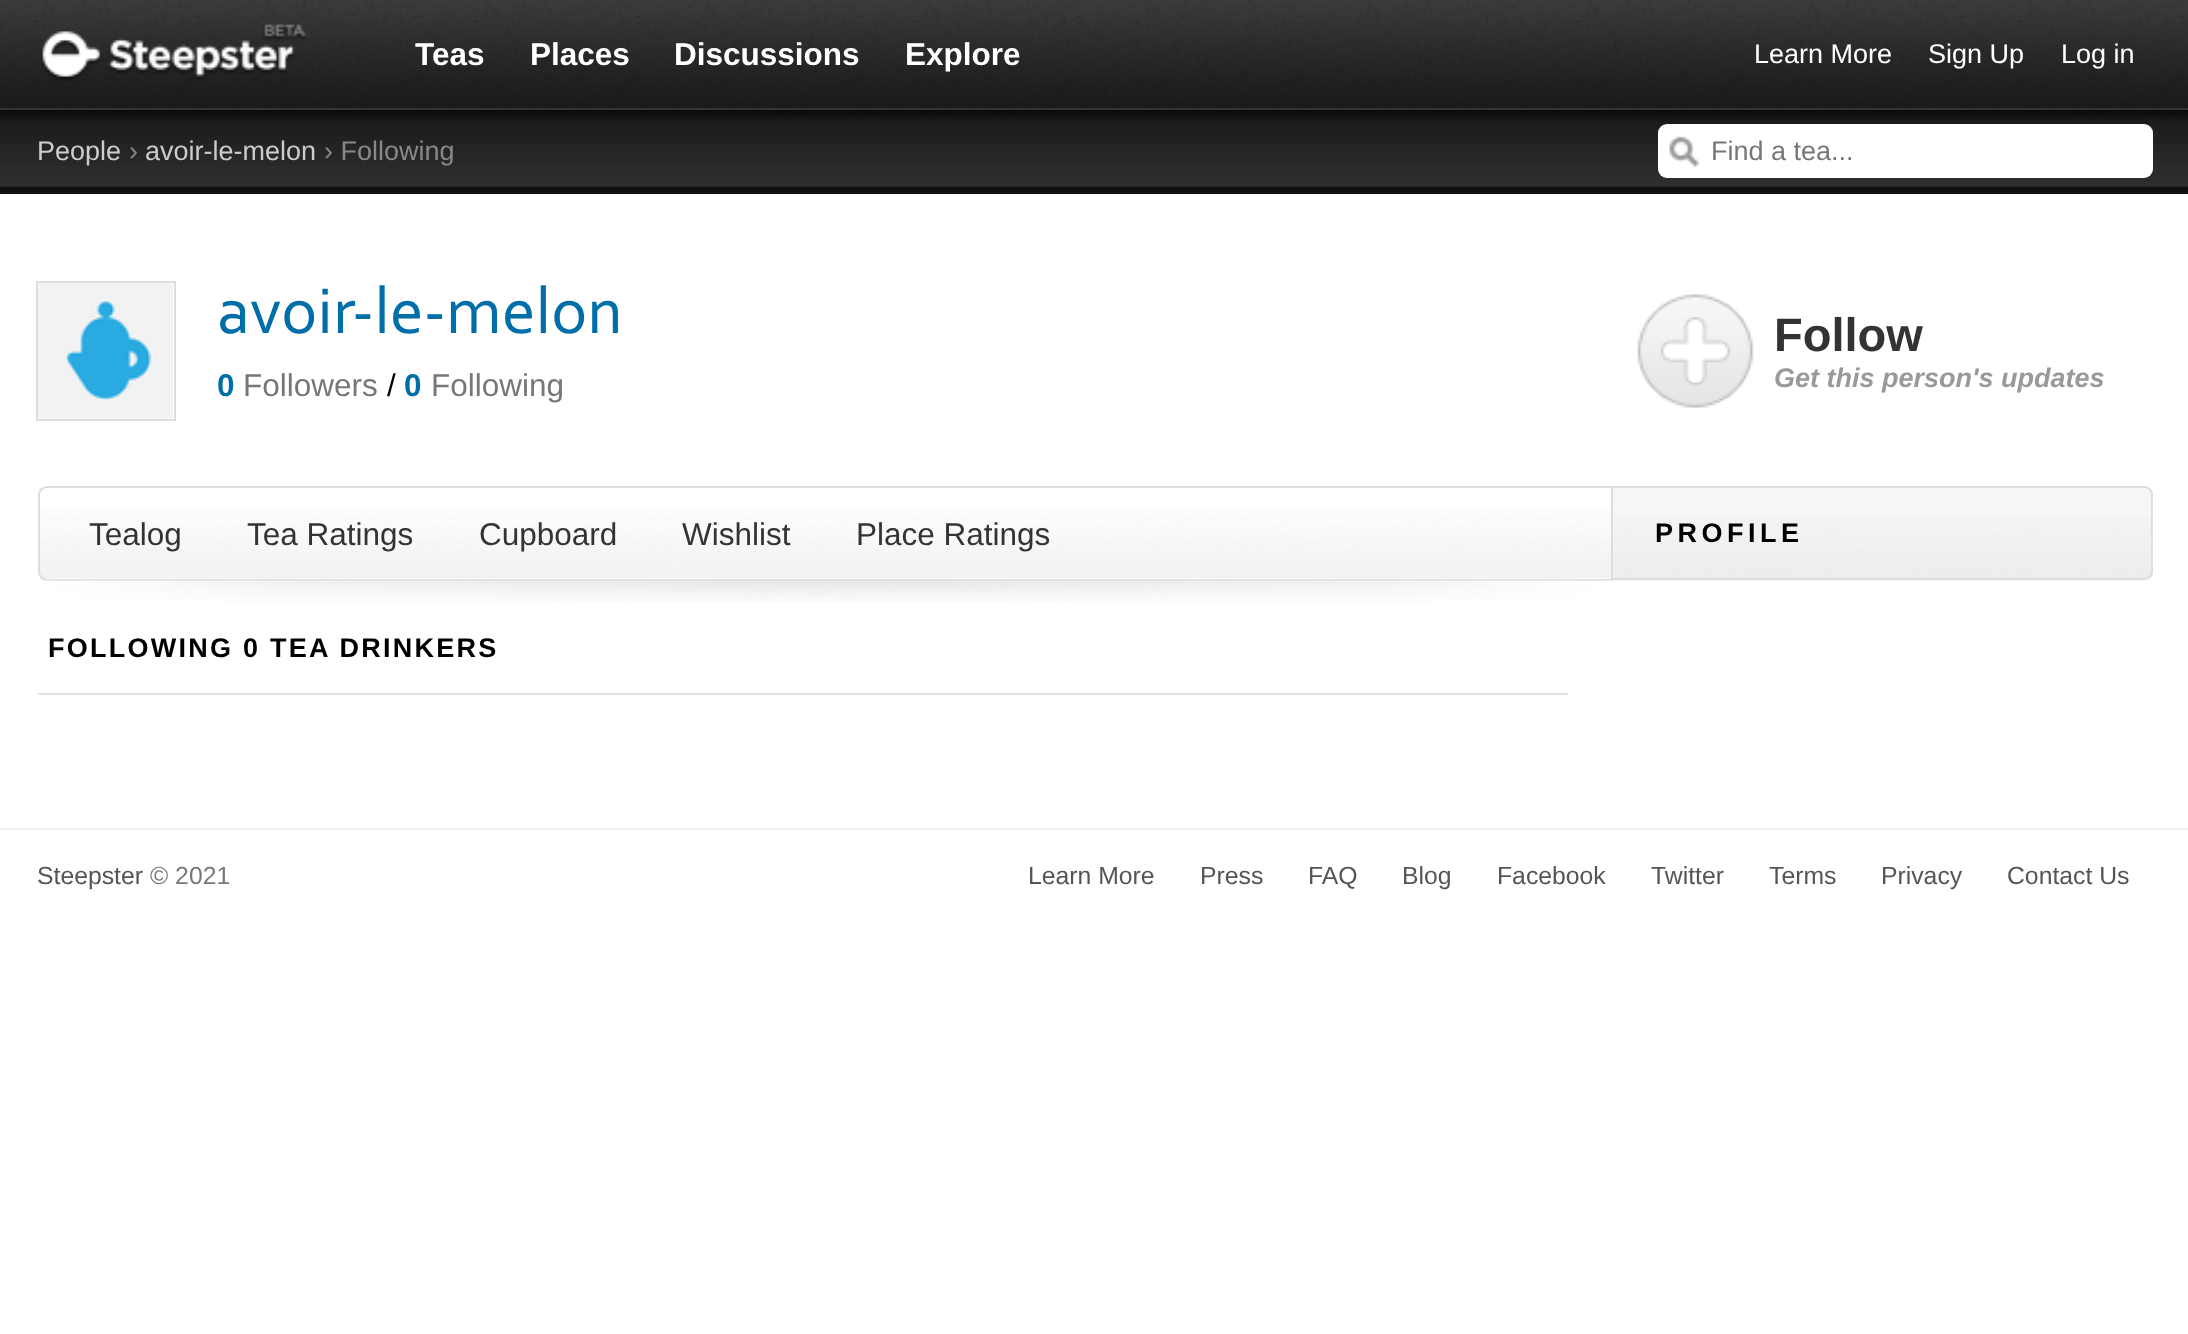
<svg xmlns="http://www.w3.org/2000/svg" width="2188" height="1334">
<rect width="100%" height="100%" fill="#fff"/>
<image x="0" y="0" width="2188" height="108" href="media/1.png"/>
<image x="41" y="24" width="266" height="57" href="media/2.png"/>
<text x="415" y="65" style="font-family:Liberation Sans;font-size:31.5px;font-weight:bold;fill:#fff">Teas</text>
<text x="530" y="65" style="font-family:Liberation Sans;font-size:31.5px;font-weight:bold;fill:#fff">Places</text>
<text x="674" y="65" style="font-family:Liberation Sans;font-size:31.5px;font-weight:bold;fill:#fff">Discussions</text>
<text x="905" y="65" style="font-family:Liberation Sans;font-size:31.5px;font-weight:bold;fill:#fff">Explore</text>
<text x="1754" y="63" style="font-family:Liberation Sans;font-size:27px;fill:#fff">Learn More</text>
<text x="1928" y="63" style="font-family:Liberation Sans;font-size:27px;fill:#fff">Sign Up</text>
<text x="2061" y="63" style="font-family:Liberation Sans;font-size:27px;fill:#fff">Log in</text>
<rect y="110" width="2188" height="84" fill="#111"/>
<image x="0" y="110" width="2188" height="77" href="media/3.png"/>
<rect y="108" width="2188" height="2" fill="#333"/>
<text x="37" y="160" style="font-family:Liberation Sans;font-size:27px;fill:#ccc">People</text>
<text x="129" y="160" style="font-family:Liberation Sans;font-size:27px;fill:#888">›</text>
<text x="145" y="160" style="font-family:Liberation Sans;font-size:27px;fill:#ccc">avoir-le-melon</text>
<text x="324" y="160" style="font-family:Liberation Sans;font-size:27px;fill:#888">› Following</text>
<rect x="1658" y="124" width="495" height="54" rx="9" fill="#fff"/>
<image x="1669" y="136" width="31" height="32" href="media/4.png"/>
<text x="1711" y="160" style="font-family:Liberation Sans;font-size:27px;fill:#777">Find a tea...</text>
<image x="38" y="283" width="135" height="136" href="media/5.png"/>
<rect x="37" y="282" width="138" height="138" fill="none" stroke="#ddd" stroke-width="2"/>
<text x="217" y="333" style="font-family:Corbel;font-size:67.5px;fill:#006ea8">avoir-le-melon</text>
<text x="217" y="396" style="font-family:Liberation Sans;font-size:31.5px;font-weight:bold;fill:#006ea8">0</text>
<text x="243" y="396" style="font-family:Liberation Sans;font-size:31.5px;fill:#777">Followers</text>
<text x="387" y="396" style="font-family:Liberation Sans;font-size:31.5px;fill:#000">/</text>
<text x="404" y="396" style="font-family:Liberation Sans;font-size:31.5px;font-weight:bold;fill:#006ea8">0</text>
<text x="431" y="396" style="font-family:Liberation Sans;font-size:31.5px;fill:#777">Following</text>
<image x="38" y="509" width="1573" height="70" href="media/6.png"/>
<path d="M47 487h1565v93h-1565c-4.5 0-8-3.5-8-8v-77c0-4.5 3.5-8 8-8z" fill="none" stroke="#ddd" stroke-width="2"/>
<text x="89" y="545" style="font-family:Liberation Sans;font-size:31.5px;fill:#333">Tealog</text>
<text x="247" y="545" style="font-family:Liberation Sans;font-size:31.5px;fill:#333">Tea Ratings</text>
<text x="479" y="545" style="font-family:Liberation Sans;font-size:31.5px;fill:#333">Cupboard</text>
<text x="682" y="545" style="font-family:Liberation Sans;font-size:31.5px;fill:#333">Wishlist</text>
<text x="856" y="545" style="font-family:Liberation Sans;font-size:31.5px;fill:#333">Place Ratings</text>
<image x="43" y="580" width="1570" height="22" href="media/7.png"/>
<text x="48" y="657" style="font-family:Liberation Sans;font-size:27px;font-weight:bold;letter-spacing:2.25px;fill:#000">FOLLOWING 0 TEA DRINKERS</text>
<rect x="38" y="693" width="1530" height="2" fill="#e3e3e3"/>
<image x="1637" y="294" width="117" height="114" href="media/8.png"/>
<text x="1774" y="351" style="font-family:Liberation Sans;font-size:47px;font-weight:bold;fill:#333">Follow</text>
<text x="1774" y="387" style="font-family:Liberation Sans;font-size:27px;font-weight:bold;font-style:italic;fill:#999">Get this person's updates</text>
<path d="M1613 486h531c5 0 9 4 9 9v77c0 5-4 9-9 9h-531z" fill="#f6f6f6"/>
<image x="1613" y="516" width="540" height="62" href="media/9.png"/>
<path d="M1613 486h531c5 0 9 4 9 9v77c0 4-4 8-9 8h-531zm0 2h531c4 0 7 3 7 7v77c0 3-3 6-7 6h-531z" fill="#ddd" fill-rule="evenodd"/>
<text x="1655" y="542" style="font-family:Liberation Sans;font-size:27px;font-weight:bold;letter-spacing:4.5px;fill:#000">PROFILE</text>
<rect y="828" width="2188" height="2" fill="#eee"/>
<text x="37" y="884" style="font-family:Liberation Sans;font-size:24.75px;fill:#555">Steepster</text>
<text x="150" y="884" style="font-family:Liberation Sans;font-size:24.75px;fill:#777">© 2021</text>
<text x="1028" y="884" style="font-family:Liberation Sans;font-size:24.75px;fill:#555">Learn More</text>
<text x="1200" y="884" style="font-family:Liberation Sans;font-size:24.75px;fill:#555">Press</text>
<text x="1308" y="884" style="font-family:Liberation Sans;font-size:24.75px;fill:#555">FAQ</text>
<text x="1402" y="884" style="font-family:Liberation Sans;font-size:24.75px;fill:#555">Blog</text>
<text x="1497" y="884" style="font-family:Liberation Sans;font-size:24.75px;fill:#555">Facebook</text>
<text x="1651" y="884" style="font-family:Liberation Sans;font-size:24.75px;fill:#555">Twitter</text>
<text x="1769" y="884" style="font-family:Liberation Sans;font-size:24.75px;fill:#555">Terms</text>
<text x="1881" y="884" style="font-family:Liberation Sans;font-size:24.75px;fill:#555">Privacy</text>
<text x="2007" y="884" style="font-family:Liberation Sans;font-size:24.75px;fill:#555">Contact Us</text>
</svg>
